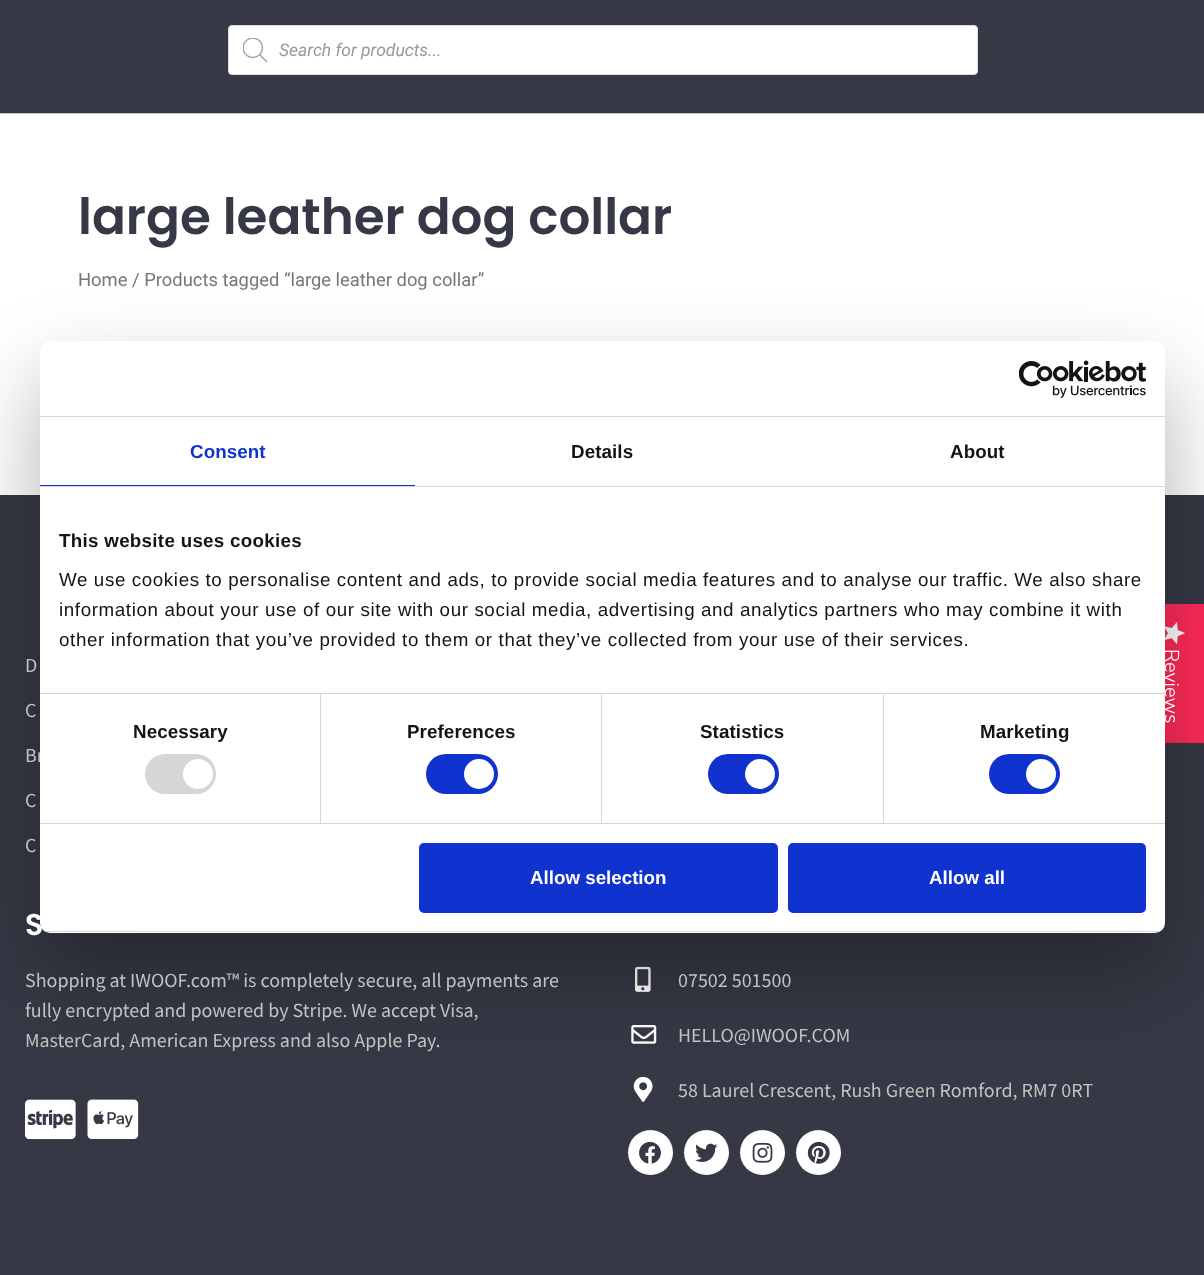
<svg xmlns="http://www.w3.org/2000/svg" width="1204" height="1275">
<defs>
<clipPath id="clip1"><rect x="40" y="341" width="1125" height="592" rx="10"/></clipPath>
</defs>
<rect width="100%" height="100%" fill="#fff"/>
<rect width="1204" height="113" fill="#363845"/>
<rect y="113" width="1204" height="1" fill="#c2c2c2"/>
<rect x="228.5" y="25.5" width="749" height="49" rx="3.5" fill="#fff" stroke="#ddd"/>
<image x="243" y="38" width="25" height="25" href="media/1.png"/>
<text x="279" y="56" style="font-family:Roboto;font-size:17.5px;font-style:italic;fill:#999">Search for products...</text>
<text x="78" y="234" style="font-family:Poppins;font-size:50px;font-weight:600;fill:#363845">large leather dog collar</text>
<text x="78" y="286" style="font-family:Roboto;font-size:18.4px;fill:#767676">Home / Products tagged “large leather dog collar”</text>
<rect y="495" width="1204" height="780" fill="#363845"/>
<path d="M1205 604v139h-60c-4 0-7-3-7-7v-125c0-4 3-7 7-7z" fill="#ff2b59"/>
<image x="1165" y="622" width="20" height="22" href="media/3.png"/>
<image x="25" y="1099" width="51" height="41" href="media/4.png"/>
<image x="87" y="1099" width="52" height="40" href="media/5.png"/>
<image x="635" y="966" width="16" height="26" href="media/6.png"/>
<image x="631" y="1025" width="26" height="19" href="media/7.png"/>
<image x="633" y="1076" width="20" height="26" href="media/8.png"/>
<rect x="40" y="381" width="1125" height="592" rx="10" fill="#0000004d" filter="blur(42.5px)"/>
<text x="25" y="762" style="font-family:Source Sans Pro;font-size:20px;fill:#c2c2c2">Br</text>
<rect x="40" y="341" width="1125" height="592" rx="10" fill="#fff"/>
<rect x="40" y="416" width="1125" height="1" fill="#d6d6d6"/>
<image x="1019" y="360" width="127" height="38" href="media/2.png"/>
<rect x="40" y="486" width="1125" height="1" fill="#d6d6d6"/>
<rect x="40" y="485" width="375" height="1" fill="#1032cf"/>
<text x="190" y="458" style="font-family:Liberation Sans;font-size:18.75px;font-weight:bold;letter-spacing:0.1px;fill:#1032cf">Consent</text>
<text x="571" y="458" style="font-family:Liberation Sans;font-size:18.75px;font-weight:bold;letter-spacing:0.1px;fill:#141414">Details</text>
<text x="950" y="458" style="font-family:Liberation Sans;font-size:18.75px;font-weight:bold;letter-spacing:0.1px;fill:#141414">About</text>
<text x="1165" y="649" transform="rotate(90 1165 649)" style="font-family:Nunito Sans;font-size:20px;font-weight:300;fill:#fff">Reviews</text>
<rect x="40" y="693" width="1125" height="1" fill="#d6d6d6"/>
<text x="59" y="547" style="font-family:Liberation Sans;font-size:18.75px;font-weight:bold;letter-spacing:0.3px;fill:#141414">This website uses cookies</text>
<text x="59" y="586" style="font-family:Liberation Sans;font-size:18.75px;letter-spacing:0.62px;fill:#141414">We use cookies to personalise content and ads, to provide social media features and to analyse our traffic. We also share</text>
<text x="59" y="616" style="font-family:Liberation Sans;font-size:18.75px;letter-spacing:0.62px;fill:#141414">information about your use of our site with our social media, advertising and analytics partners who may combine it with</text>
<text x="59" y="646" style="font-family:Liberation Sans;font-size:18.75px;letter-spacing:0.62px;fill:#141414">other information that you’ve provided to them or that they’ve collected from your use of their services.</text>
<rect x="40" y="823" width="1125" height="1" fill="#d6d6d6"/>
<rect x="320" y="694" width="1" height="129" fill="#d6d6d6"/>
<text x="133" y="738" style="font-family:Liberation Sans;font-size:18.75px;font-weight:bold;letter-spacing:0.1px;fill:#141414">Necessary</text>
<rect x="145" y="754" width="71" height="40" rx="20" fill="#d6d6d6"/>
<circle cx="198" cy="774" r="15" fill="#fff"/>
<rect x="601" y="694" width="1" height="129" fill="#d6d6d6"/>
<text x="407" y="738" style="font-family:Liberation Sans;font-size:18.75px;font-weight:bold;letter-spacing:0.1px;fill:#141414">Preferences</text>
<rect x="426" y="754" width="72" height="40" rx="20" fill="#1032cf"/>
<circle cx="479" cy="774" r="15" fill="#fff"/>
<rect x="883" y="694" width="1" height="129" fill="#d6d6d6"/>
<text x="700" y="738" style="font-family:Liberation Sans;font-size:18.75px;font-weight:bold;letter-spacing:0.1px;fill:#141414">Statistics</text>
<rect x="708" y="754" width="71" height="40" rx="20" fill="#1032cf"/>
<circle cx="760" cy="774" r="15" fill="#fff"/>
<text x="980" y="738" style="font-family:Liberation Sans;font-size:18.75px;font-weight:bold;letter-spacing:0.1px;fill:#141414">Marketing</text>
<rect x="989" y="754" width="71" height="40" rx="20" fill="#1032cf"/>
<circle cx="1041" cy="774" r="15" fill="#fff"/>
<text x="25" y="935" style="font-family:Poppins;font-size:30px;font-weight:600;fill:#fff">S</text>
<g clip-path="url(#clip1)">
<rect x="40" y="931" width="1125" height="1" fill="#d6d6d6"/>
</g>
<rect x="420.5" y="844.5" width="356" height="67" rx="3.5" fill="#1032cf" stroke="#1032cf" stroke-width="3"/>
<text x="530" y="884" style="font-family:Liberation Sans;font-size:18.75px;font-weight:bold;fill:#fff">Allow selection</text>
<rect x="789.5" y="844.5" width="355" height="67" rx="3.5" fill="#1032cf" stroke="#1032cf" stroke-width="3"/>
<text x="929" y="884" style="font-family:Liberation Sans;font-size:18.75px;font-weight:bold;fill:#fff">Allow all</text>
<text x="25" y="672" style="font-family:Source Sans Pro;font-size:20px;fill:#c2c2c2">D</text>
<text x="25" y="717" style="font-family:Source Sans Pro;font-size:20px;fill:#c2c2c2">C</text>
<text x="25" y="807" style="font-family:Source Sans Pro;font-size:20px;fill:#c2c2c2">C</text>
<text x="25" y="852" style="font-family:Source Sans Pro;font-size:20px;fill:#c2c2c2">C</text>
<text x="25" y="987" style="font-family:Source Sans Pro;font-size:20px;fill:#c2c2c2">Shopping at IWOOF.com™ is completely secure, all payments are</text>
<text x="25" y="1017" style="font-family:Source Sans Pro;font-size:20px;fill:#c2c2c2">fully encrypted and powered by Stripe. We accept Visa,</text>
<text x="25" y="1047" style="font-family:Source Sans Pro;font-size:20px;fill:#c2c2c2">MasterCard, American Express and also Apple Pay.</text>
<text x="678" y="987" style="font-family:Source Sans Pro;font-size:20px;fill:#c2c2c2">07502 501500</text>
<text x="678" y="1042" style="font-family:Source Sans Pro;font-size:20px;fill:#c2c2c2">HELLO@IWOOF.COM</text>
<text x="678" y="1097" style="font-family:Source Sans Pro;font-size:20px;fill:#c2c2c2">58 Laurel Crescent, Rush Green Romford, RM7 0RT</text>
<circle cx="650.5" cy="1152.5" r="22.5" fill="#fff"/>
<image x="639" y="1141" width="22" height="23" href="media/9.png"/>
<circle cx="706.5" cy="1152.5" r="22.5" fill="#fff"/>
<image x="695" y="1143" width="23" height="19" href="media/10.png"/>
<circle cx="762.5" cy="1152.5" r="22.5" fill="#fff"/>
<image x="752" y="1142" width="21" height="21" href="media/11.png"/>
<circle cx="818.5" cy="1152.5" r="22.5" fill="#fff"/>
<image x="807" y="1141" width="23" height="23" href="media/12.png"/>
</svg>
